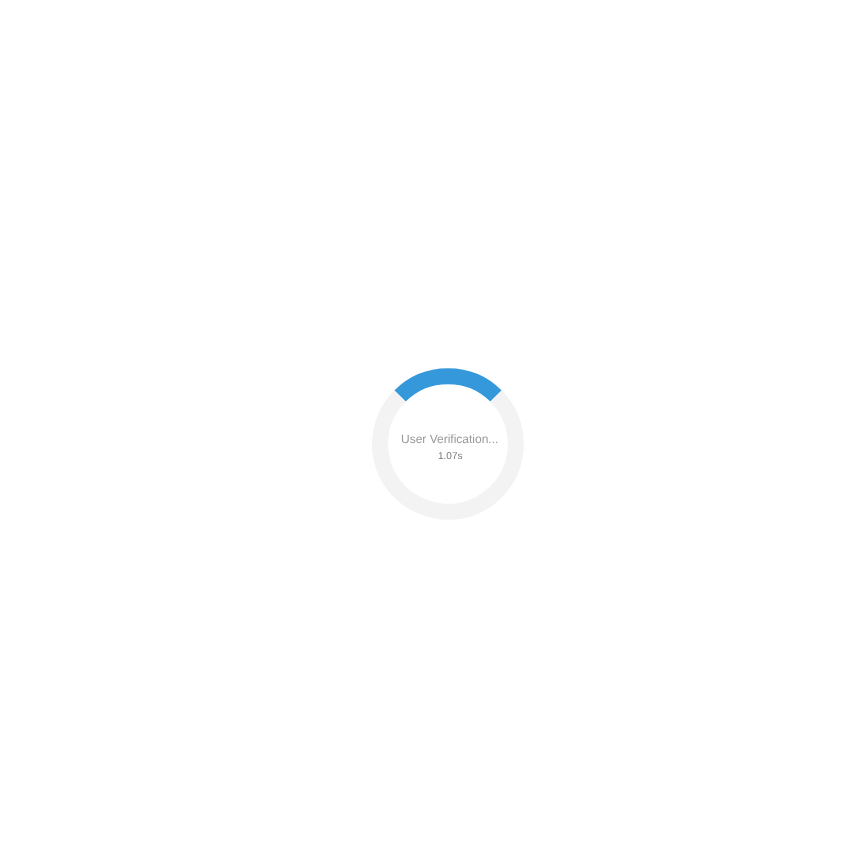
<svg xmlns="http://www.w3.org/2000/svg" width="864" height="856">
<rect width="100%" height="100%" fill="#fff"/>
<path d="M400 396c26-26.5 70-26.5 96 0" fill="none" stroke="#3498db" stroke-width="16"/>
<path d="M496 396c16 16 23 39 18.5 61.5c-2.5 13-9 25-18.5 34.5c-42.5 42.5-116 12-116-48c0-18 7.5-35.5 20-48" fill="none" stroke="#f3f3f3" stroke-width="16"/>
<text x="401" y="443" style="font-family:Liberation Sans;font-size:12px;fill:#999">User Verification...</text>
<text x="438" y="459" style="font-family:Liberation Sans;font-size:10px;fill:#777">1.07s</text>
</svg>
